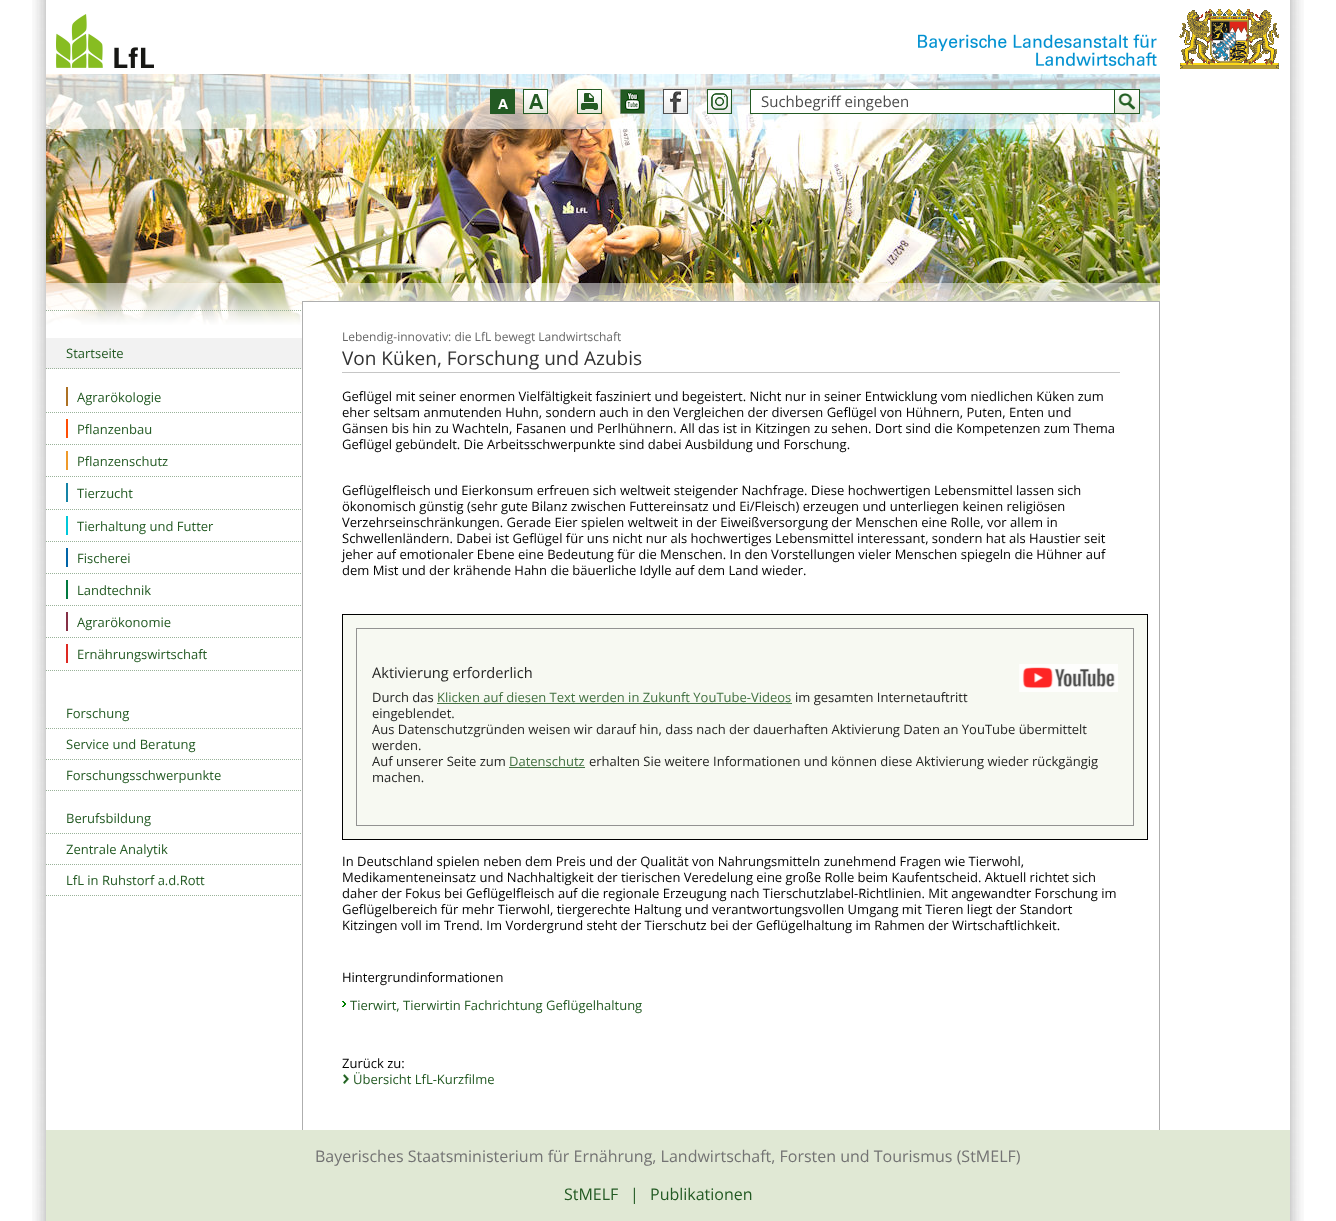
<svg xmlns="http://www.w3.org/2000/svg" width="1336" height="1221">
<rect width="100%" height="100%" fill="#fff"/>
<image x="32" y="0" width="14" height="1221" href="media/1.png"/>
<image x="1290" y="0" width="14" height="1221" href="media/2.png"/>
<image x="56" y="14" width="98" height="54" href="media/3.png"/>
<image x="918" y="34" width="239" height="32" href="media/4.png"/>
<image x="1179" y="9" width="100" height="60" href="media/5.png"/>
<image x="46" y="74" width="1114" height="251" href="media/6.png"/>
<rect x="46" y="74" width="1114" height="55" fill="#ffffff99"/>
<image x="490" y="89" width="25" height="25" href="media/7.png"/>
<image x="491" y="90" width="23" height="23" href="media/8.png"/>
<image x="523" y="89" width="25" height="25" href="media/9.png"/>
<image x="531" y="95" width="16" height="18" href="media/10.png"/>
<image x="577" y="89" width="25" height="25" href="media/11.png"/>
<rect x="578" y="101" width="6" height="1" fill="#f1f6f1"/>
<image x="620" y="89" width="25" height="25" href="media/12.png"/>
<image x="663" y="89" width="25" height="25" href="media/13.png"/>
<image x="707" y="89" width="25" height="25" href="media/14.png"/>
<rect x="751" y="90" width="363" height="23" fill="#fff"/>
<rect x="750.5" y="89.5" width="389" height="24" fill="none" stroke="#235a23"/>
<text x="761" y="107" style="font-family:Open Sans;font-size:15px;fill:#4c4c4c">Suchbegriff eingeben</text>
<rect x="1115" y="90" width="24" height="3" fill="#fff"/>
<rect x="1114" y="89" width="1" height="25" fill="#235a23"/>
<image x="1115" y="93" width="24" height="20" href="media/15.png"/>
<image x="46" y="283" width="1114" height="42" href="media/16.png"/>
<path d="M46 310.5h256" fill="none" stroke="#99b299" stroke-dasharray="1 1"/>
<rect x="46" y="338" width="256" height="31" fill="#f2f2f2"/>
<path d="M46 368.5h256" fill="none" stroke="#99b299" stroke-dasharray="1 1"/>
<text x="66" y="358" style="font-family:Open Sans;font-size:13px;fill:#235a23">Startseite</text>
<path d="M46 412.5h256" fill="none" stroke="#99b299" stroke-dasharray="1 1"/>
<rect x="66" y="387" width="2" height="19" fill="#ad7124"/>
<text x="77" y="402" style="font-family:Open Sans;font-size:13px;fill:#235a23">Agrarökologie</text>
<path d="M46 444.5h256" fill="none" stroke="#99b299" stroke-dasharray="1 1"/>
<rect x="66" y="419" width="2" height="19" fill="#ff4e04"/>
<text x="77" y="434" style="font-family:Open Sans;font-size:13px;fill:#235a23">Pflanzenbau</text>
<path d="M46 476.5h256" fill="none" stroke="#99b299" stroke-dasharray="1 1"/>
<rect x="66" y="451" width="2" height="19" fill="#ef9a2a"/>
<text x="77" y="466" style="font-family:Open Sans;font-size:13px;fill:#235a23">Pflanzenschutz</text>
<path d="M46 509.5h256" fill="none" stroke="#99b299" stroke-dasharray="1 1"/>
<rect x="66" y="483" width="2" height="19" fill="#1583a6"/>
<text x="77" y="498" style="font-family:Open Sans;font-size:13px;fill:#235a23">Tierzucht</text>
<path d="M46 541.5h256" fill="none" stroke="#99b299" stroke-dasharray="1 1"/>
<rect x="66" y="516" width="2" height="19" fill="#00c8da"/>
<text x="77" y="531" style="font-family:Open Sans;font-size:13px;fill:#235a23">Tierhaltung und Futter</text>
<path d="M46 573.5h256" fill="none" stroke="#99b299" stroke-dasharray="1 1"/>
<rect x="66" y="548" width="2" height="19" fill="#0064a8"/>
<text x="77" y="563" style="font-family:Open Sans;font-size:13px;fill:#235a23">Fischerei</text>
<path d="M46 605.5h256" fill="none" stroke="#99b299" stroke-dasharray="1 1"/>
<rect x="66" y="580" width="2" height="19" fill="#00793f"/>
<text x="77" y="595" style="font-family:Open Sans;font-size:13px;fill:#235a23">Landtechnik</text>
<path d="M46 637.5h256" fill="none" stroke="#99b299" stroke-dasharray="1 1"/>
<rect x="66" y="612" width="2" height="19" fill="#853046"/>
<text x="77" y="627" style="font-family:Open Sans;font-size:13px;fill:#235a23">Agrarökonomie</text>
<path d="M46 670.5h256" fill="none" stroke="#99b299" stroke-dasharray="1 1"/>
<rect x="66" y="644" width="2" height="19" fill="#de2922"/>
<text x="77" y="659" style="font-family:Open Sans;font-size:13px;fill:#235a23">Ernährungswirtschaft</text>
<path d="M46 728.5h256" fill="none" stroke="#99b299" stroke-dasharray="1 1"/>
<text x="66" y="718" style="font-family:Open Sans;font-size:13px;fill:#235a23">Forschung</text>
<path d="M46 759.5h256" fill="none" stroke="#99b299" stroke-dasharray="1 1"/>
<text x="66" y="749" style="font-family:Open Sans;font-size:13px;fill:#235a23">Service und Beratung</text>
<path d="M46 790.5h256" fill="none" stroke="#99b299" stroke-dasharray="1 1"/>
<text x="66" y="780" style="font-family:Open Sans;font-size:13px;fill:#235a23">Forschungsschwerpunkte</text>
<path d="M46 833.5h256" fill="none" stroke="#99b299" stroke-dasharray="1 1"/>
<text x="66" y="823" style="font-family:Open Sans;font-size:13px;fill:#235a23">Berufsbildung</text>
<path d="M46 864.5h256" fill="none" stroke="#99b299" stroke-dasharray="1 1"/>
<text x="66" y="854" style="font-family:Open Sans;font-size:13px;fill:#235a23">Zentrale Analytik</text>
<path d="M46 895.5h256" fill="none" stroke="#99b299" stroke-dasharray="1 1"/>
<text x="66" y="885" style="font-family:Open Sans;font-size:13px;fill:#235a23">LfL in Ruhstorf a.d.Rott</text>
<rect x="303" y="302" width="856" height="23" fill="#fff"/>
<rect x="302" y="301" width="858" height="1" fill="#aeaeae"/>
<rect x="1159" y="301" width="1" height="829" fill="#aeaeae"/>
<rect x="302" y="301" width="1" height="829" fill="#aeaeae"/>
<rect x="342" y="372" width="778" height="1" fill="#c6c6c6"/>
<text x="342" y="341" style="font-family:Open Sans;font-size:12px;fill:#666">Lebendig-innovativ: die LfL bewegt Landwirtschaft</text>
<text x="342" y="365" style="font-family:Open Sans;font-size:19px;fill:#333">Von Küken, Forschung und Azubis</text>
<text x="342" y="401" style="font-family:Open Sans;font-size:13px;fill:#000">Geflügel mit seiner enormen Vielfältigkeit fasziniert und begeistert. Nicht nur in seiner Entwicklung vom niedlichen Küken zum</text>
<text x="342" y="417" style="font-family:Open Sans;font-size:13px;fill:#000">eher seltsam anmutenden Huhn, sondern auch in den Vergleichen der diversen Geflügel von Hühnern, Puten, Enten und</text>
<text x="342" y="433" style="font-family:Open Sans;font-size:13px;fill:#000">Gänsen bis hin zu Wachteln, Fasanen und Perlhühnern. All das ist in Kitzingen zu sehen. Dort sind die Kompetenzen zum Thema</text>
<text x="342" y="449" style="font-family:Open Sans;font-size:13px;fill:#000">Geflügel gebündelt. Die Arbeitsschwerpunkte sind dabei Ausbildung und Forschung.</text>
<text x="342" y="495" style="font-family:Open Sans;font-size:13px;fill:#000">Geflügelfleisch und Eierkonsum erfreuen sich weltweit steigender Nachfrage. Diese hochwertigen Lebensmittel lassen sich</text>
<text x="342" y="511" style="font-family:Open Sans;font-size:13px;fill:#000">ökonomisch günstig (sehr gute Bilanz zwischen Futtereinsatz und Ei/Fleisch) erzeugen und unterliegen keinen religiösen</text>
<text x="342" y="527" style="font-family:Open Sans;font-size:13px;fill:#000">Verzehrseinschränkungen. Gerade Eier spielen weltweit in der Eiweißversorgung der Menschen eine Rolle, vor allem in</text>
<text x="342" y="543" style="font-family:Open Sans;font-size:13px;fill:#000">Schwellenländern. Dabei ist Geflügel für uns nicht nur als hochwertiges Lebensmittel interessant, sondern hat als Haustier seit</text>
<text x="342" y="559" style="font-family:Open Sans;font-size:13px;fill:#000">jeher auf emotionaler Ebene eine Bedeutung für die Menschen. In den Vorstellungen vieler Menschen spiegeln die Hühner auf</text>
<text x="342" y="575" style="font-family:Open Sans;font-size:13px;fill:#000">dem Mist und der krähende Hahn die bäuerliche Idylle auf dem Land wieder.</text>
<rect x="342.5" y="614.5" width="805" height="225" fill="#f7f9f2" stroke="#000"/>
<rect x="356.5" y="628.5" width="777" height="197" fill="none" stroke="#929291"/>
<text x="372" y="678" style="font-family:Open Sans;font-size:14.6px;fill:#252524">Aktivierung erforderlich</text>
<image x="1019" y="664" width="99" height="28" href="media/17.png"/>
<text x="372" y="702" style="font-family:Open Sans;font-size:13px;fill:#252524">Durch das</text>
<text x="437" y="702" style="font-family:Open Sans;font-size:13px;fill:#437242">Klicken auf diesen Text werden in Zukunft YouTube-Videos</text>
<rect x="437" y="703" width="355" height="1" fill="#437242"/>
<text x="795" y="702" style="font-family:Open Sans;font-size:13px;fill:#252524">im gesamten Internetauftritt</text>
<text x="372" y="718" style="font-family:Open Sans;font-size:13px;fill:#252524">eingeblendet.</text>
<text x="372" y="734" style="font-family:Open Sans;font-size:13px;fill:#252524">Aus Datenschutzgründen weisen wir darauf hin, dass nach der dauerhaften Aktivierung Daten an YouTube übermittelt</text>
<text x="372" y="750" style="font-family:Open Sans;font-size:13px;fill:#252524">werden.</text>
<text x="372" y="766" style="font-family:Open Sans;font-size:13px;fill:#252524">Auf unserer Seite zum</text>
<text x="509" y="766" style="font-family:Open Sans;font-size:13px;fill:#437242">Datenschutz</text>
<rect x="509" y="767" width="76" height="1" fill="#437242"/>
<text x="589" y="766" style="font-family:Open Sans;font-size:13px;fill:#252524">erhalten Sie weitere Informationen und können diese Aktivierung wieder rückgängig</text>
<text x="372" y="782" style="font-family:Open Sans;font-size:13px;fill:#252524">machen.</text>
<text x="342" y="866" style="font-family:Open Sans;font-size:13px;fill:#000">In Deutschland spielen neben dem Preis und der Qualität von Nahrungsmitteln zunehmend Fragen wie Tierwohl,</text>
<text x="342" y="882" style="font-family:Open Sans;font-size:13px;fill:#000">Medikamenteneinsatz und Nachhaltigkeit der tierischen Veredelung eine große Rolle beim Kaufentscheid. Aktuell richtet sich</text>
<text x="342" y="898" style="font-family:Open Sans;font-size:13px;fill:#000">daher der Fokus bei Geflügelfleisch auf die regionale Erzeugung nach Tierschutzlabel-Richtlinien. Mit angewandter Forschung im</text>
<text x="342" y="914" style="font-family:Open Sans;font-size:13px;fill:#000">Geflügelbereich für mehr Tierwohl, tiergerechte Haltung und verantwortungsvollen Umgang mit Tieren liegt der Standort</text>
<text x="342" y="930" style="font-family:Open Sans;font-size:13px;fill:#000">Kitzingen voll im Trend. Im Vordergrund steht der Tierschutz bei der Geflügelhaltung im Rahmen der Wirtschaftlichkeit.</text>
<text x="342" y="982" style="font-family:Open Sans;font-size:13px;fill:#000">Hintergrundinformationen</text>
<image x="342" y="1001" width="4" height="6" href="media/18.png"/>
<text x="350" y="1010" style="font-family:Open Sans;font-size:13px;fill:#235a23">Tierwirt, Tierwirtin Fachrichtung Geflügelhaltung</text>
<text x="342" y="1068" style="font-family:Open Sans;font-size:13px;fill:#000">Zurück zu:</text>
<image x="343" y="1074" width="7" height="10" href="media/19.png"/>
<text x="353" y="1084" style="font-family:Open Sans;font-size:13px;fill:#235a23">Übersicht LfL-Kurzfilme</text>
<rect x="46" y="1130" width="1244" height="91" fill="#e0e8d4"/>
<text x="315" y="1162" style="font-family:Open Sans;font-size:16px;fill:#737373">Bayerisches Staatsministerium für Ernährung, Landwirtschaft, Forsten und Tourismus (StMELF)</text>
<text x="564" y="1200" style="font-family:Open Sans;font-size:16px;fill:#235a23">StMELF</text>
<text x="630" y="1200" style="font-family:Open Sans;font-size:16px;fill:#235a23">|</text>
<text x="650" y="1200" style="font-family:Open Sans;font-size:16px;fill:#235a23">Publikationen</text>
</svg>
